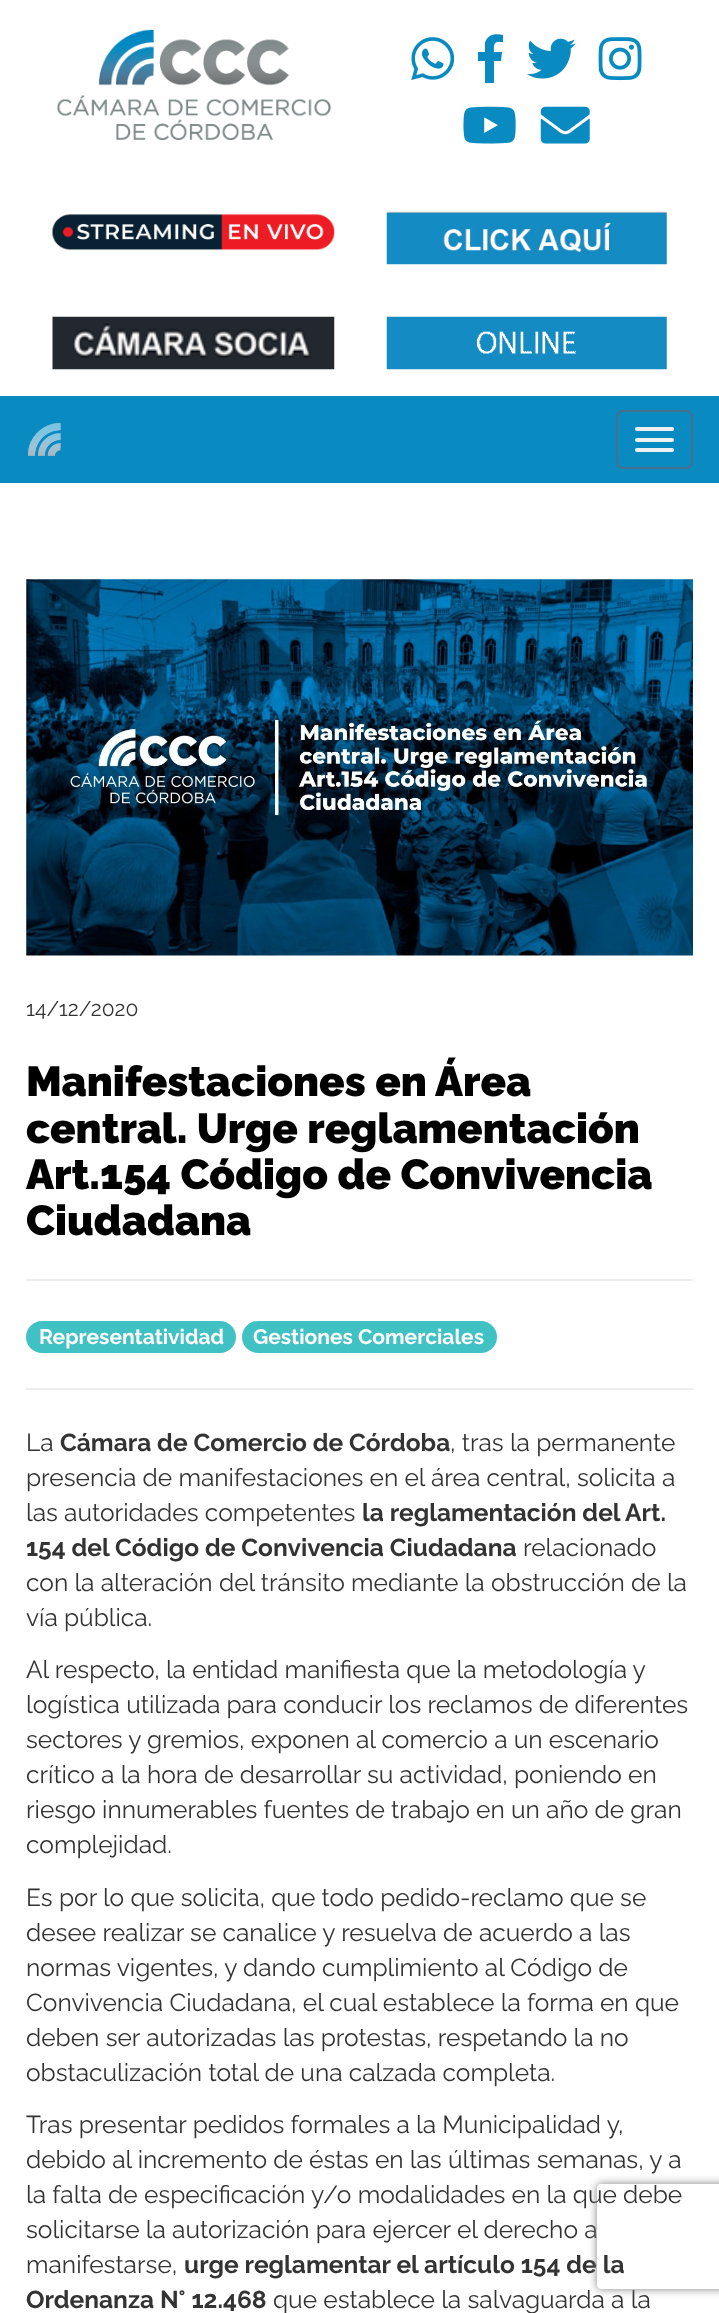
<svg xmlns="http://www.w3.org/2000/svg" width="719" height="2313">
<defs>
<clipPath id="clip1"><path d="M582 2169h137v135h-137zm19 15h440c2 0 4 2 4 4v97c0 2-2 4-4 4h-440c-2 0-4-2-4-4v-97c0-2 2-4 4-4z" clip-rule="evenodd"/></clipPath>
</defs>
<rect width="100%" height="100%" fill="#fff"/>
<image x="57" y="29" width="274" height="111" href="media/1.png"/>
<image x="411" y="37" width="44" height="43" href="media/2.png"/>
<path d="M498 42c-5 0-4 6-4 10h8l-1 9h-7v22h-9v-22h-7v-9h7v-9c2-9 11-10 18-8v7z" fill="#098ac0"/>
<image x="527" y="38" width="49" height="41" href="media/3.png"/>
<image x="598" y="37" width="44" height="44" href="media/4.png"/>
<image x="463" y="106" width="53" height="38" href="media/5.png"/>
<image x="540" y="106" width="50" height="38" href="media/6.png"/>
<image x="52" y="214" width="283" height="37" href="media/7.png"/>
<image x="386" y="211" width="281" height="54" href="media/8.png"/>
<image x="52" y="316" width="283" height="54" href="media/9.png"/>
<image x="386" y="316" width="281" height="54" href="media/10.png"/>
<rect y="396" width="719" height="87" fill="#098ac0"/>
<image x="28" y="423" width="33" height="33" href="media/11.png"/>
<rect x="617" y="411" width="75" height="57" rx="6" fill="none" stroke="#48708c" stroke-width="2"/>
<rect x="635" y="427" width="39" height="4" rx="2" fill="#ecf0f1"/>
<rect x="635" y="438" width="39" height="4" rx="2" fill="#ecf0f1"/>
<rect x="635" y="448" width="39" height="4" rx="2" fill="#ecf0f1"/>
<image x="26" y="579" width="667" height="377" href="media/12.png"/>
<text x="26" y="1016" style="font-family:Raleway;font-size:21px;fill:#333">14/12/2020</text>
<text x="26" y="1096" style="font-family:Raleway;font-size:42px;font-weight:900;fill:#000">Manifestaciones en Área</text>
<text x="26" y="1143" style="font-family:Raleway;font-size:42px;font-weight:900;fill:#000">central. Urge reglamentación</text>
<text x="26" y="1189" style="font-family:Raleway;font-size:42px;font-weight:900;fill:#000">Art.154 Código de Convivencia</text>
<text x="26" y="1235" style="font-family:Raleway;font-size:42px;font-weight:900;fill:#000">Ciudadana</text>
<rect x="26" y="1279" width="667" height="2" fill="#eee"/>
<rect x="26" y="1321" width="210" height="32" rx="16" fill="#40c1c4"/>
<text x="39" y="1344" style="font-family:Raleway;font-size:21px;font-weight:bold;fill:#fff">Representatividad</text>
<rect x="242" y="1321" width="255" height="32" rx="16" fill="#40c1c4"/>
<text x="253" y="1344" style="font-family:Raleway;font-size:21px;font-weight:bold;fill:#fff">Gestiones Comerciales</text>
<rect x="26" y="1388" width="667" height="2" fill="#eee"/>
<text x="26" y="1451" style="font-family:Raleway;font-size:24.5px;fill:#333">La</text>
<text x="60" y="1451" style="font-family:Raleway;font-size:24.5px;font-weight:bold;fill:#333">Cámara de Comercio de Córdoba</text>
<text x="450" y="1451" style="font-family:Raleway;font-size:24.5px;fill:#333">, tras la permanente</text>
<text x="26" y="1486" style="font-family:Raleway;font-size:24.5px;fill:#333">presencia de manifestaciones en el área central, solicita a</text>
<text x="26" y="1521" style="font-family:Raleway;font-size:24.5px;fill:#333">las autoridades competentes</text>
<text x="362" y="1521" style="font-family:Raleway;font-size:24.5px;font-weight:bold;fill:#333">la reglamentación del Art.</text>
<text x="26" y="1556" style="font-family:Raleway;font-size:24.5px;font-weight:bold;fill:#333">154 del Código de Convivencia Ciudadana</text>
<text x="523" y="1556" style="font-family:Raleway;font-size:24.5px;fill:#333">relacionado</text>
<text x="26" y="1591" style="font-family:Raleway;font-size:24.5px;fill:#333">con la alteración del tránsito mediante la obstrucción de la</text>
<text x="26" y="1626" style="font-family:Raleway;font-size:24.5px;fill:#333">vía pública.</text>
<text x="26" y="1678" style="font-family:Raleway;font-size:24.5px;fill:#333">Al respecto, la entidad manifiesta que la metodología y</text>
<text x="26" y="1713" style="font-family:Raleway;font-size:24.5px;fill:#333">logística utilizada para conducir los reclamos de diferentes</text>
<text x="26" y="1748" style="font-family:Raleway;font-size:24.5px;fill:#333">sectores y gremios, exponen al comercio a un escenario</text>
<text x="26" y="1783" style="font-family:Raleway;font-size:24.5px;fill:#333">crítico a la hora de desarrollar su actividad, poniendo en</text>
<text x="26" y="1818" style="font-family:Raleway;font-size:24.5px;fill:#333">riesgo innumerables fuentes de trabajo en un año de gran</text>
<text x="26" y="1853" style="font-family:Raleway;font-size:24.5px;fill:#333">complejidad.</text>
<text x="26" y="1906" style="font-family:Raleway;font-size:24.5px;fill:#333">Es por lo que solicita, que todo pedido-reclamo que se</text>
<text x="26" y="1941" style="font-family:Raleway;font-size:24.5px;fill:#333">desee realizar se canalice y resuelva de acuerdo a las</text>
<text x="26" y="1976" style="font-family:Raleway;font-size:24.5px;fill:#333">normas vigentes, y dando cumplimiento al Código de</text>
<text x="26" y="2011" style="font-family:Raleway;font-size:24.5px;fill:#333">Convivencia Ciudadana, el cual establece la forma en que</text>
<text x="26" y="2046" style="font-family:Raleway;font-size:24.5px;fill:#333">deben ser autorizadas las protestas, respetando la no</text>
<text x="26" y="2081" style="font-family:Raleway;font-size:24.5px;fill:#333">obstaculización total de una calzada completa.</text>
<text x="26" y="2133" style="font-family:Raleway;font-size:24.5px;fill:#333">Tras presentar pedidos formales a la Municipalidad y,</text>
<text x="26" y="2168" style="font-family:Raleway;font-size:24.5px;fill:#333">debido al incremento de éstas en las últimas semanas, y a</text>
<text x="26" y="2203" style="font-family:Raleway;font-size:24.5px;fill:#333">la falta de especificación y/o modalidades en la que debe</text>
<text x="26" y="2238" style="font-family:Raleway;font-size:24.5px;fill:#333">solicitarse la autorización para ejercer el derecho a</text>
<text x="26" y="2273" style="font-family:Raleway;font-size:24.5px;fill:#333">manifestarse,</text>
<text x="184" y="2273" style="font-family:Raleway;font-size:24.5px;font-weight:bold;fill:#333">urge reglamentar el artículo 154 de la</text>
<text x="26" y="2308" style="font-family:Raleway;font-size:24.5px;font-weight:bold;fill:#333">Ordenanza N° 12.468</text>
<text x="273" y="2308" style="font-family:Raleway;font-size:24.5px;fill:#333">que establece la salvaguarda a la</text>
<g clip-path="url(#clip1)">
<rect x="597" y="2184" width="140" height="105" rx="4" fill="#808080" filter="blur(4.5px)"/>
</g>
</svg>
